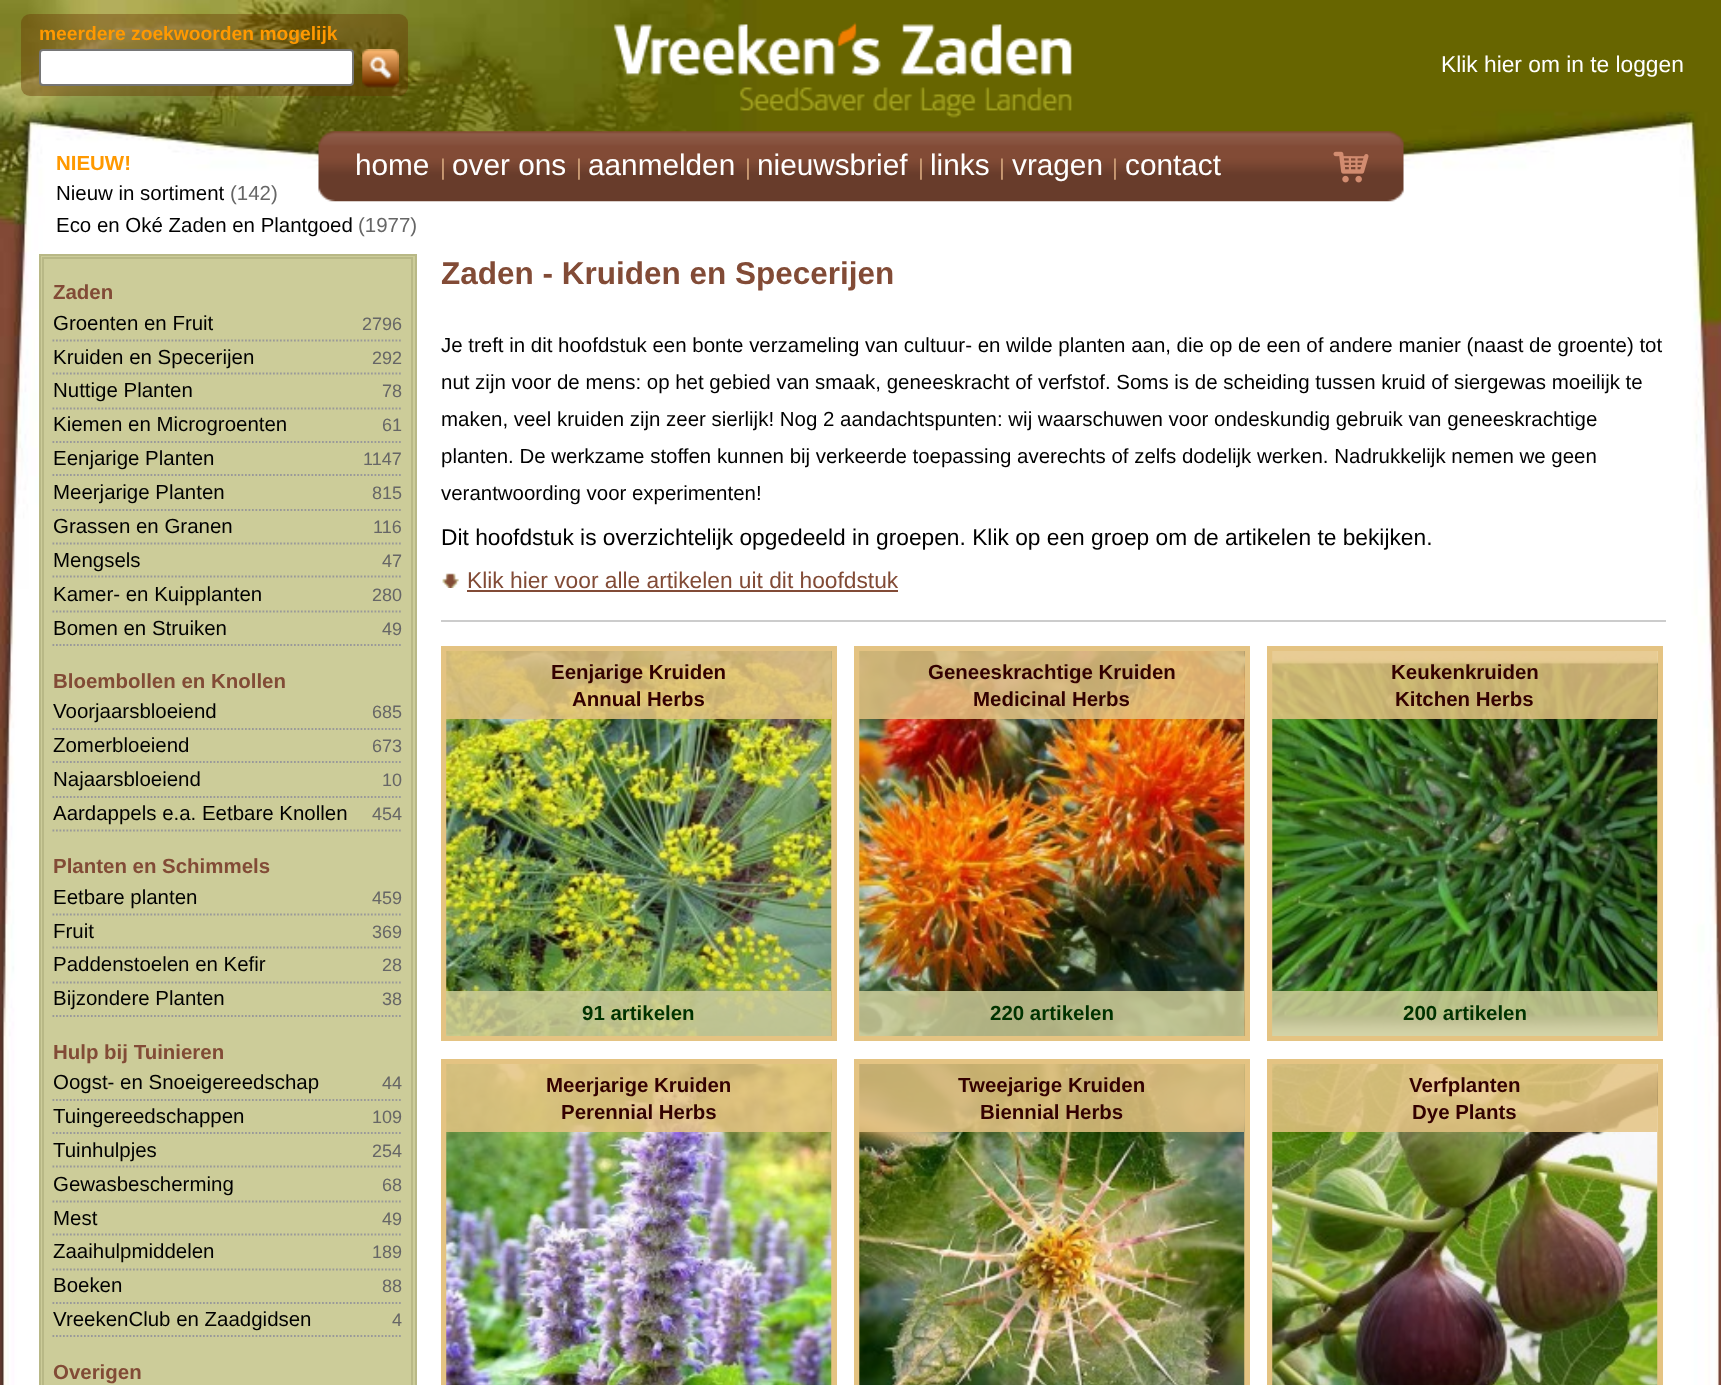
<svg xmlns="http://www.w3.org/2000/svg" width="1721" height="1385">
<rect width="100%" height="100%" fill="#fff"/>
<image x="0" y="0" width="1721" height="1385" href="media/1.png"/>
<rect x="21" y="14" width="387" height="82" rx="9" fill="#66330066"/>
<text x="39" y="40" style="font-family:Liberation Sans;font-size:19.25px;font-weight:bold;fill:#f90">meerdere zoekwoorden mogelijk</text>
<rect x="40" y="50" width="313" height="35" rx="3" fill="#fff" stroke="#767676" stroke-width="2"/>
<image x="362" y="49" width="37" height="39" href="media/2.png"/>
<image x="613" y="22" width="459" height="96" href="media/3.png"/>
<text x="1441" y="72" style="font-family:Liberation Sans;font-size:22.75px;fill:#fff">Klik hier om in te loggen</text>
<image x="318" y="131" width="1086" height="71" href="media/4.png"/>
<text x="355" y="175" style="font-family:Liberation Sans;font-size:29.75px;fill:#fff">home</text>
<text x="440" y="175" style="font-family:Liberation Sans;font-size:22.75px;fill:#cb9c75">|</text>
<text x="452" y="175" style="font-family:Liberation Sans;font-size:29.75px;fill:#fff">over ons</text>
<text x="576" y="175" style="font-family:Liberation Sans;font-size:22.75px;fill:#cb9c75">|</text>
<text x="588" y="175" style="font-family:Liberation Sans;font-size:29.75px;fill:#fff">aanmelden</text>
<text x="745" y="175" style="font-family:Liberation Sans;font-size:22.75px;fill:#cb9c75">|</text>
<text x="757" y="175" style="font-family:Liberation Sans;font-size:29.75px;fill:#fff">nieuwsbrief</text>
<text x="918" y="175" style="font-family:Liberation Sans;font-size:22.75px;fill:#cb9c75">|</text>
<text x="930" y="175" style="font-family:Liberation Sans;font-size:29.75px;fill:#fff">links</text>
<text x="999" y="175" style="font-family:Liberation Sans;font-size:22.75px;fill:#cb9c75">|</text>
<text x="1012" y="175" style="font-family:Liberation Sans;font-size:29.75px;fill:#fff">vragen</text>
<text x="1112" y="175" style="font-family:Liberation Sans;font-size:22.75px;fill:#cb9c75">|</text>
<text x="1125" y="175" style="font-family:Liberation Sans;font-size:29.75px;fill:#fff">contact</text>
<image x="1333" y="151" width="36" height="32" href="media/5.png"/>
<text x="56" y="170" style="font-family:Liberation Sans;font-size:20.47px;font-weight:bold;fill:#f90">NIEUW!</text>
<text x="56" y="200" style="font-family:Liberation Sans;font-size:20.47px;fill:#000">Nieuw in sortiment</text>
<text x="230" y="200" style="font-family:Liberation Sans;font-size:20.47px;fill:#666">(142)</text>
<text x="56" y="232" style="font-family:Liberation Sans;font-size:20.47px;fill:#000">Eco en Oké Zaden en Plantgoed</text>
<text x="358" y="232" style="font-family:Liberation Sans;font-size:20.47px;fill:#666">(1977)</text>
<rect x="40" y="255" width="376" height="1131" fill="#cc9" stroke="#b8b886" stroke-width="2"/>
<rect x="43" y="258" width="369" height="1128" fill="none" stroke="#b8b886" stroke-width="2"/>
<text x="53" y="299" style="font-family:Liberation Sans;font-size:20.47px;font-weight:bold;fill:#824b36">Zaden</text>
<path d="M52.5 340.5h350" fill="none" stroke="#999" stroke-width="1.8" stroke-dasharray="1.75 1.75"/>
<text x="53" y="330" style="font-family:Liberation Sans;font-size:20.47px;fill:#000">Groenten en Fruit</text>
<text x="362" y="330" style="font-family:Liberation Sans;font-size:18px;fill:#666">2796</text>
<path d="M52.5 373.5h350" fill="none" stroke="#999" stroke-width="1.8" stroke-dasharray="1.75 1.75"/>
<text x="53" y="364" style="font-family:Liberation Sans;font-size:20.47px;fill:#000">Kruiden en Specerijen</text>
<text x="372" y="364" style="font-family:Liberation Sans;font-size:18px;fill:#666">292</text>
<path d="M52.5 408.5h350" fill="none" stroke="#999" stroke-width="1.8" stroke-dasharray="1.75 1.75"/>
<text x="53" y="397" style="font-family:Liberation Sans;font-size:20.47px;fill:#000">Nuttige Planten</text>
<text x="382" y="397" style="font-family:Liberation Sans;font-size:18px;fill:#666">78</text>
<path d="M52.5 442h350" fill="none" stroke="#999" stroke-width="1.8" stroke-dasharray="1.75 1.75"/>
<text x="53" y="431" style="font-family:Liberation Sans;font-size:20.47px;fill:#000">Kiemen en Microgroenten</text>
<text x="382" y="431" style="font-family:Liberation Sans;font-size:18px;fill:#666">61</text>
<path d="M52.5 475h350" fill="none" stroke="#999" stroke-width="1.8" stroke-dasharray="1.75 1.75"/>
<text x="53" y="465" style="font-family:Liberation Sans;font-size:20.47px;fill:#000">Eenjarige Planten</text>
<text x="363" y="465" style="font-family:Liberation Sans;font-size:18px;fill:#666">1147</text>
<path d="M52.5 510h350" fill="none" stroke="#999" stroke-width="1.8" stroke-dasharray="1.75 1.75"/>
<text x="53" y="499" style="font-family:Liberation Sans;font-size:20.47px;fill:#000">Meerjarige Planten</text>
<text x="372" y="499" style="font-family:Liberation Sans;font-size:18px;fill:#666">815</text>
<path d="M52.5 543.5h350" fill="none" stroke="#999" stroke-width="1.8" stroke-dasharray="1.75 1.75"/>
<text x="53" y="533" style="font-family:Liberation Sans;font-size:20.47px;fill:#000">Grassen en Granen</text>
<text x="373" y="533" style="font-family:Liberation Sans;font-size:18px;fill:#666">116</text>
<path d="M52.5 576.5h350" fill="none" stroke="#999" stroke-width="1.8" stroke-dasharray="1.75 1.75"/>
<text x="53" y="567" style="font-family:Liberation Sans;font-size:20.47px;fill:#000">Mengsels</text>
<text x="382" y="567" style="font-family:Liberation Sans;font-size:18px;fill:#666">47</text>
<path d="M52.5 611.5h350" fill="none" stroke="#999" stroke-width="1.8" stroke-dasharray="1.75 1.75"/>
<text x="53" y="601" style="font-family:Liberation Sans;font-size:20.47px;fill:#000">Kamer- en Kuipplanten</text>
<text x="372" y="601" style="font-family:Liberation Sans;font-size:18px;fill:#666">280</text>
<path d="M52.5 645h350" fill="none" stroke="#999" stroke-width="1.8" stroke-dasharray="1.75 1.75"/>
<text x="53" y="635" style="font-family:Liberation Sans;font-size:20.47px;fill:#000">Bomen en Struiken</text>
<text x="382" y="635" style="font-family:Liberation Sans;font-size:18px;fill:#666">49</text>
<text x="53" y="688" style="font-family:Liberation Sans;font-size:20.47px;font-weight:bold;fill:#824b36">Bloembollen en Knollen</text>
<path d="M52.5 729h350" fill="none" stroke="#999" stroke-width="1.8" stroke-dasharray="1.75 1.75"/>
<text x="53" y="718" style="font-family:Liberation Sans;font-size:20.47px;fill:#000">Voorjaarsbloeiend</text>
<text x="372" y="718" style="font-family:Liberation Sans;font-size:18px;fill:#666">685</text>
<path d="M52.5 762h350" fill="none" stroke="#999" stroke-width="1.8" stroke-dasharray="1.75 1.75"/>
<text x="53" y="752" style="font-family:Liberation Sans;font-size:20.47px;fill:#000">Zomerbloeiend</text>
<text x="372" y="752" style="font-family:Liberation Sans;font-size:18px;fill:#666">673</text>
<path d="M52.5 797h350" fill="none" stroke="#999" stroke-width="1.8" stroke-dasharray="1.75 1.75"/>
<text x="53" y="786" style="font-family:Liberation Sans;font-size:20.47px;fill:#000">Najaarsbloeiend</text>
<text x="382" y="786" style="font-family:Liberation Sans;font-size:18px;fill:#666">10</text>
<path d="M52.5 830.5h350" fill="none" stroke="#999" stroke-width="1.8" stroke-dasharray="1.75 1.75"/>
<text x="53" y="820" style="font-family:Liberation Sans;font-size:20.47px;fill:#000">Aardappels e.a. Eetbare Knollen</text>
<text x="372" y="820" style="font-family:Liberation Sans;font-size:18px;fill:#666">454</text>
<text x="53" y="873" style="font-family:Liberation Sans;font-size:20.47px;font-weight:bold;fill:#824b36">Planten en Schimmels</text>
<path d="M52.5 914.5h350" fill="none" stroke="#999" stroke-width="1.8" stroke-dasharray="1.75 1.75"/>
<text x="53" y="904" style="font-family:Liberation Sans;font-size:20.47px;fill:#000">Eetbare planten</text>
<text x="372" y="904" style="font-family:Liberation Sans;font-size:18px;fill:#666">459</text>
<path d="M52.5 947.5h350" fill="none" stroke="#999" stroke-width="1.8" stroke-dasharray="1.75 1.75"/>
<text x="53" y="938" style="font-family:Liberation Sans;font-size:20.47px;fill:#000">Fruit</text>
<text x="372" y="938" style="font-family:Liberation Sans;font-size:18px;fill:#666">369</text>
<path d="M52.5 982.5h350" fill="none" stroke="#999" stroke-width="1.8" stroke-dasharray="1.75 1.75"/>
<text x="53" y="971" style="font-family:Liberation Sans;font-size:20.47px;fill:#000">Paddenstoelen en Kefir</text>
<text x="382" y="971" style="font-family:Liberation Sans;font-size:18px;fill:#666">28</text>
<path d="M52.5 1016h350" fill="none" stroke="#999" stroke-width="1.8" stroke-dasharray="1.75 1.75"/>
<text x="53" y="1005" style="font-family:Liberation Sans;font-size:20.47px;fill:#000">Bijzondere Planten</text>
<text x="382" y="1005" style="font-family:Liberation Sans;font-size:18px;fill:#666">38</text>
<text x="53" y="1059" style="font-family:Liberation Sans;font-size:20.47px;font-weight:bold;fill:#824b36">Hulp bij Tuinieren</text>
<path d="M52.5 1100h350" fill="none" stroke="#999" stroke-width="1.8" stroke-dasharray="1.75 1.75"/>
<text x="53" y="1089" style="font-family:Liberation Sans;font-size:20.47px;fill:#000">Oogst- en Snoeigereedschap</text>
<text x="382" y="1089" style="font-family:Liberation Sans;font-size:18px;fill:#666">44</text>
<path d="M52.5 1133h350" fill="none" stroke="#999" stroke-width="1.8" stroke-dasharray="1.75 1.75"/>
<text x="53" y="1123" style="font-family:Liberation Sans;font-size:20.47px;fill:#000">Tuingereedschappen</text>
<text x="372" y="1123" style="font-family:Liberation Sans;font-size:18px;fill:#666">109</text>
<path d="M52.5 1166.5h350" fill="none" stroke="#999" stroke-width="1.8" stroke-dasharray="1.75 1.75"/>
<text x="53" y="1157" style="font-family:Liberation Sans;font-size:20.47px;fill:#000">Tuinhulpjes</text>
<text x="372" y="1157" style="font-family:Liberation Sans;font-size:18px;fill:#666">254</text>
<path d="M52.5 1201.5h350" fill="none" stroke="#999" stroke-width="1.8" stroke-dasharray="1.75 1.75"/>
<text x="53" y="1191" style="font-family:Liberation Sans;font-size:20.47px;fill:#000">Gewasbescherming</text>
<text x="382" y="1191" style="font-family:Liberation Sans;font-size:18px;fill:#666">68</text>
<path d="M52.5 1234.5h350" fill="none" stroke="#999" stroke-width="1.8" stroke-dasharray="1.75 1.75"/>
<text x="53" y="1225" style="font-family:Liberation Sans;font-size:20.47px;fill:#000">Mest</text>
<text x="382" y="1225" style="font-family:Liberation Sans;font-size:18px;fill:#666">49</text>
<path d="M52.5 1269.5h350" fill="none" stroke="#999" stroke-width="1.8" stroke-dasharray="1.75 1.75"/>
<text x="53" y="1258" style="font-family:Liberation Sans;font-size:20.47px;fill:#000">Zaaihulpmiddelen</text>
<text x="372" y="1258" style="font-family:Liberation Sans;font-size:18px;fill:#666">189</text>
<path d="M52.5 1303h350" fill="none" stroke="#999" stroke-width="1.8" stroke-dasharray="1.75 1.75"/>
<text x="53" y="1292" style="font-family:Liberation Sans;font-size:20.47px;fill:#000">Boeken</text>
<text x="382" y="1292" style="font-family:Liberation Sans;font-size:18px;fill:#666">88</text>
<path d="M52.5 1336h350" fill="none" stroke="#999" stroke-width="1.8" stroke-dasharray="1.75 1.75"/>
<text x="53" y="1326" style="font-family:Liberation Sans;font-size:20.47px;fill:#000">VreekenClub en Zaadgidsen</text>
<text x="392" y="1326" style="font-family:Liberation Sans;font-size:18px;fill:#666">4</text>
<text x="53" y="1379" style="font-family:Liberation Sans;font-size:20.47px;font-weight:bold;fill:#824b36">Overigen</text>
<text x="441" y="284" style="font-family:Liberation Sans;font-size:31.5px;font-weight:bold;fill:#824b36">Zaden - Kruiden en Specerijen</text>
<text x="441" y="352" style="font-family:Liberation Sans;font-size:20.47px;fill:#000">Je treft in dit hoofdstuk een bonte verzameling van cultuur- en wilde planten aan, die op de een of andere manier (naast de groente) tot</text>
<text x="441" y="389" style="font-family:Liberation Sans;font-size:20.47px;fill:#000">nut zijn voor de mens: op het gebied van smaak, geneeskracht of verfstof. Soms is de scheiding tussen kruid of siergewas moeilijk te</text>
<text x="441" y="426" style="font-family:Liberation Sans;font-size:20.47px;fill:#000">maken, veel kruiden zijn zeer sierlijk! Nog 2 aandachtspunten: wij waarschuwen voor ondeskundig gebruik van geneeskrachtige</text>
<text x="441" y="463" style="font-family:Liberation Sans;font-size:20.47px;fill:#000">planten. De werkzame stoffen kunnen bij verkeerde toepassing averechts of zelfs dodelijk werken. Nadrukkelijk nemen we geen</text>
<text x="441" y="500" style="font-family:Liberation Sans;font-size:20.47px;fill:#000">verantwoording voor experimenten!</text>
<text x="441" y="545" style="font-family:Liberation Sans;font-size:22.75px;fill:#000">Dit hoofdstuk is overzichtelijk opgedeeld in groepen. Klik op een groep om de artikelen te bekijken.</text>
<image x="442" y="573" width="17" height="15" href="media/6.png"/>
<text x="467" y="588" style="font-family:Liberation Sans;font-size:22.75px;fill:#824b36">Klik hier voor alle artikelen uit dit hoofdstuk</text>
<rect x="467" y="590" width="431" height="2" fill="#824b36"/>
<rect x="441" y="620" width="1225" height="2" fill="#ccc"/>
<rect x="441" y="646" width="396" height="395" fill="#e4c382"/>
<image x="446" y="651" width="386" height="385" href="media/7.png"/>
<rect x="446" y="651" width="385" height="68" fill="#e4c382d9"/>
<text x="551" y="679" style="font-family:Liberation Sans;font-size:20.47px;font-weight:bold;fill:#300">Eenjarige Kruiden</text>
<text x="572" y="706" style="font-family:Liberation Sans;font-size:20.47px;font-weight:bold;fill:#300">Annual Herbs</text>
<rect x="446" y="991" width="385" height="45" fill="#cccc99d9"/>
<text x="582" y="1020" style="font-family:Liberation Sans;font-size:20.47px;font-weight:bold;fill:#030">91 artikelen</text>
<rect x="854" y="646" width="396" height="395" fill="#e4c382"/>
<image x="859" y="651" width="386" height="385" href="media/8.png"/>
<rect x="859" y="651" width="385" height="68" fill="#e4c382d9"/>
<text x="928" y="679" style="font-family:Liberation Sans;font-size:20.47px;font-weight:bold;fill:#300">Geneeskrachtige Kruiden</text>
<text x="973" y="706" style="font-family:Liberation Sans;font-size:20.47px;font-weight:bold;fill:#300">Medicinal Herbs</text>
<rect x="859" y="991" width="385" height="45" fill="#cccc99d9"/>
<text x="990" y="1020" style="font-family:Liberation Sans;font-size:20.47px;font-weight:bold;fill:#030">220 artikelen</text>
<rect x="1267" y="646" width="396" height="395" fill="#e4c382"/>
<image x="1272" y="651" width="386" height="385" href="media/9.png"/>
<rect x="1272" y="651" width="385" height="68" fill="#e4c382d9"/>
<text x="1391" y="679" style="font-family:Liberation Sans;font-size:20.47px;font-weight:bold;fill:#300">Keukenkruiden</text>
<text x="1395" y="706" style="font-family:Liberation Sans;font-size:20.47px;font-weight:bold;fill:#300">Kitchen Herbs</text>
<rect x="1272" y="991" width="385" height="45" fill="#cccc99d9"/>
<text x="1403" y="1020" style="font-family:Liberation Sans;font-size:20.47px;font-weight:bold;fill:#030">200 artikelen</text>
<rect x="441" y="1059" width="396" height="326" fill="#e4c382"/>
<image x="446" y="1064" width="386" height="321" href="media/10.png"/>
<rect x="446" y="1064" width="385" height="68" fill="#e4c382d9"/>
<text x="546" y="1092" style="font-family:Liberation Sans;font-size:20.47px;font-weight:bold;fill:#300">Meerjarige Kruiden</text>
<text x="561" y="1119" style="font-family:Liberation Sans;font-size:20.47px;font-weight:bold;fill:#300">Perennial Herbs</text>
<rect x="854" y="1059" width="396" height="326" fill="#e4c382"/>
<image x="859" y="1064" width="386" height="321" href="media/11.png"/>
<rect x="859" y="1064" width="385" height="68" fill="#e4c382d9"/>
<text x="958" y="1092" style="font-family:Liberation Sans;font-size:20.47px;font-weight:bold;fill:#300">Tweejarige Kruiden</text>
<text x="980" y="1119" style="font-family:Liberation Sans;font-size:20.47px;font-weight:bold;fill:#300">Biennial Herbs</text>
<rect x="1267" y="1059" width="396" height="326" fill="#e4c382"/>
<image x="1272" y="1064" width="386" height="321" href="media/12.png"/>
<rect x="1272" y="1064" width="385" height="68" fill="#e4c382d9"/>
<text x="1409" y="1092" style="font-family:Liberation Sans;font-size:20.47px;font-weight:bold;fill:#300">Verfplanten</text>
<text x="1412" y="1119" style="font-family:Liberation Sans;font-size:20.47px;font-weight:bold;fill:#300">Dye Plants</text>
</svg>
